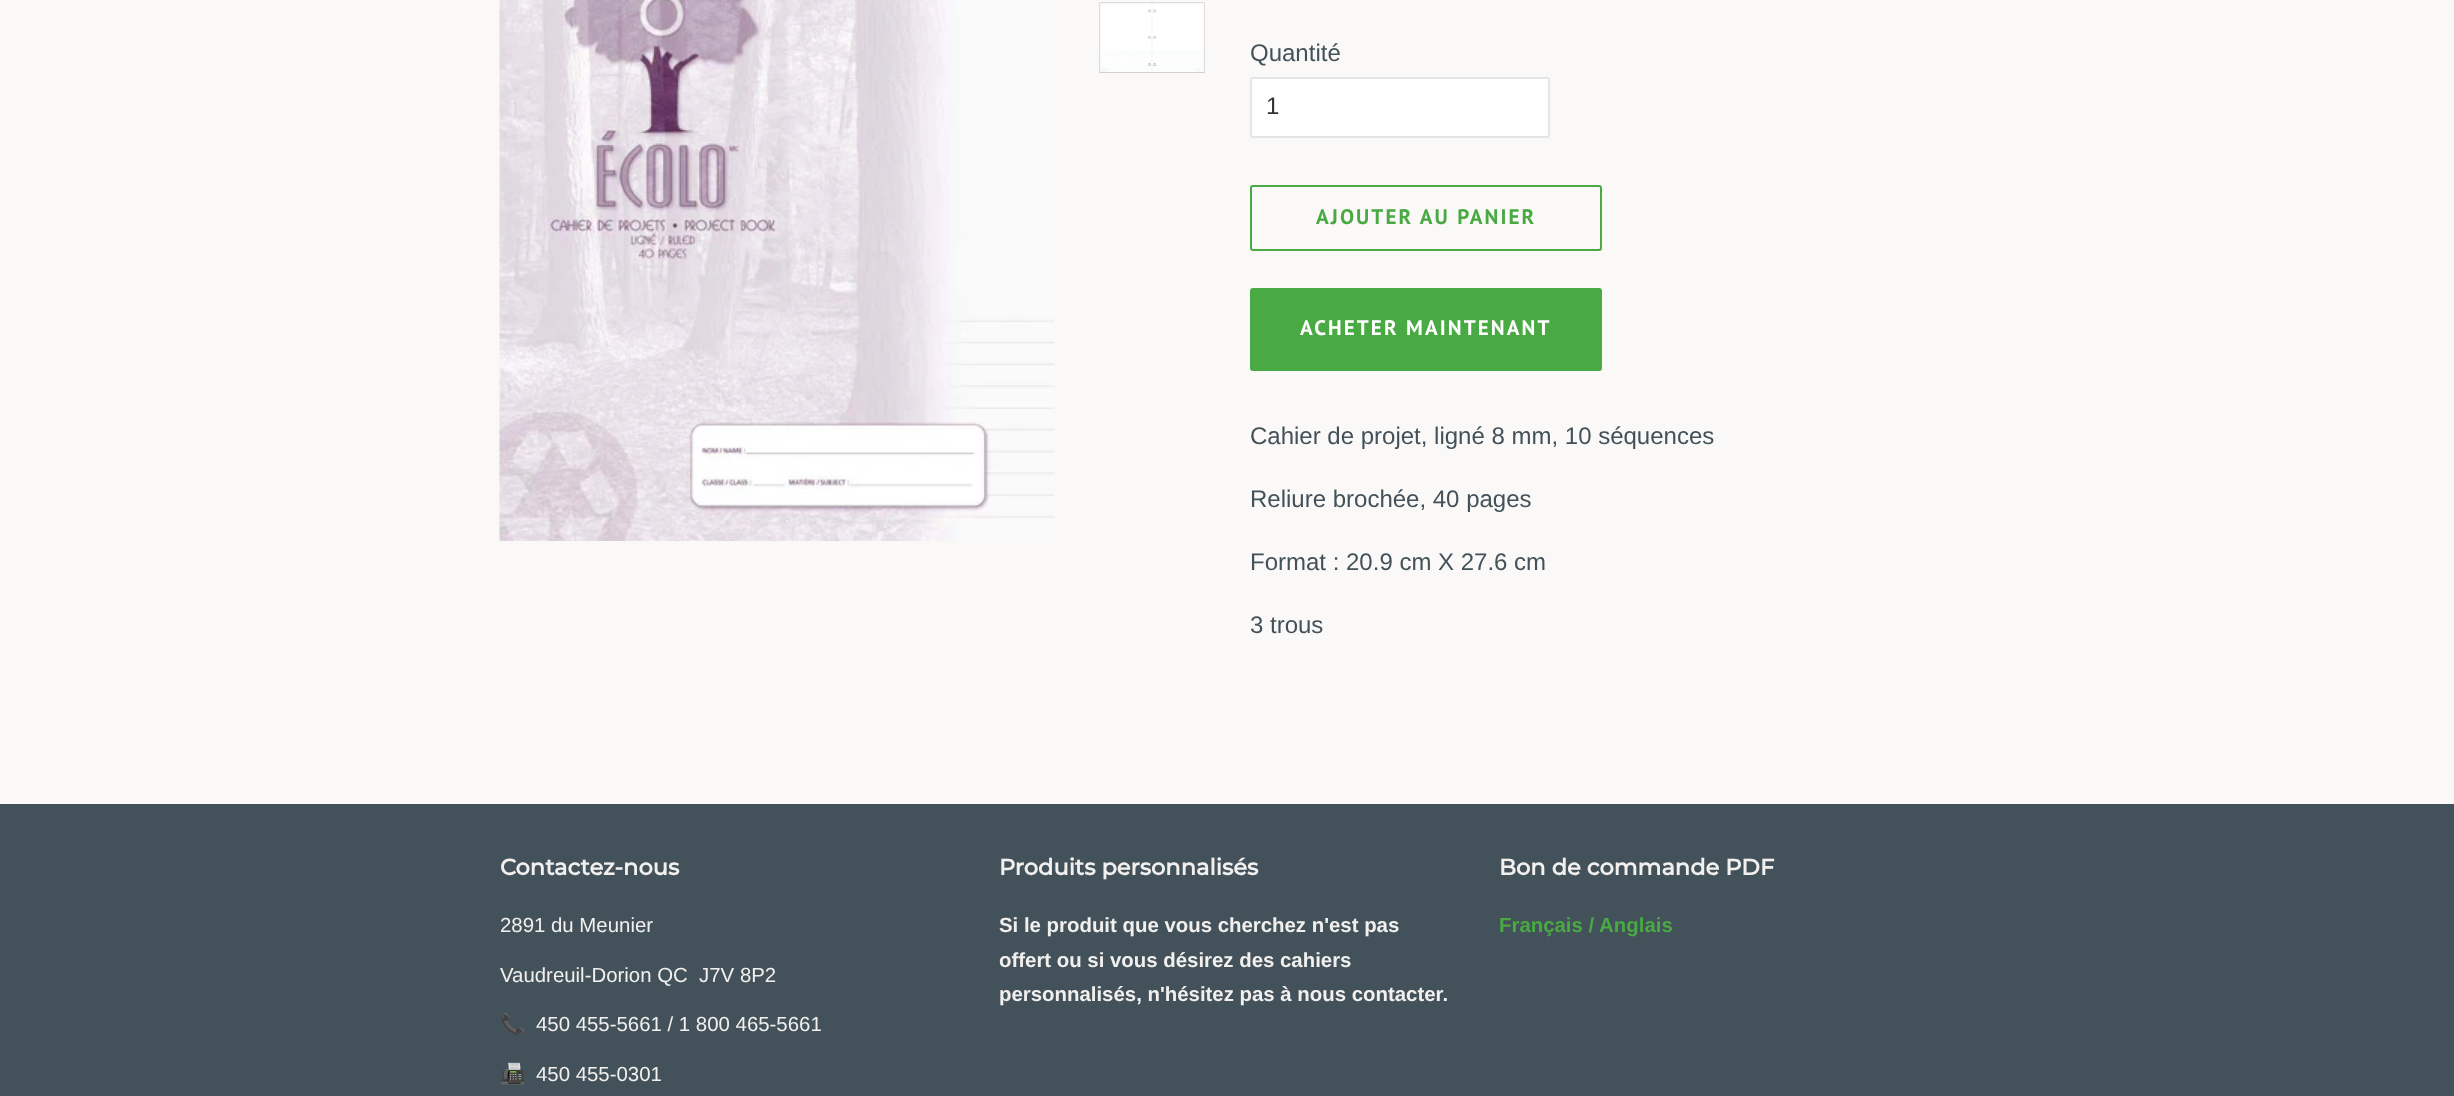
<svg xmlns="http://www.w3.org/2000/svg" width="2454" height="1096">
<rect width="100%" height="100%" fill="#faf9f7"/>
<image x="499" y="0" width="556" height="541" href="media/1.png"/>
<image x="1099" y="2" width="106" height="71" href="media/2.png"/>
<text x="1250" y="61" style="font-family:Liberation Sans;font-size:24px;fill:#43525a">Quantité</text>
<rect x="1250" y="77" width="300" height="61" rx="3" fill="#fff"/>
<rect x="1251" y="78" width="298" height="59" rx="2" fill="none" stroke="#43525a26" stroke-width="2"/>
<text x="1266" y="114" style="font-family:Liberation Sans;font-size:24px;fill:#333">1</text>
<rect x="1251" y="186" width="350" height="64" rx="2" fill="none" stroke="#49a942" stroke-width="2"/>
<text x="1316" y="224" style="font-family:PT Sans;font-size:21px;font-weight:bold;letter-spacing:2.1px;fill:#49a942">AJOUTER AU PANIER</text>
<rect x="1250" y="288" width="352" height="83" rx="3" fill="#49a942"/>
<text x="1300" y="335" style="font-family:PT Sans;font-size:21px;font-weight:bold;letter-spacing:2.1px;fill:#fff">ACHETER MAINTENANT</text>
<text x="1250" y="444" style="font-family:Liberation Sans;font-size:24px;fill:#43525a">Cahier de projet, ligné 8 mm, 10 séquences</text>
<text x="1250" y="507" style="font-family:Liberation Sans;font-size:24px;fill:#43525a">Reliure brochée, 40 pages</text>
<text x="1250" y="570" style="font-family:Liberation Sans;font-size:24px;fill:#43525a">Format : 20.9 cm X 27.6 cm</text>
<text x="1250" y="633" style="font-family:Liberation Sans;font-size:24px;fill:#43525a">3 trous</text>
<rect y="804" width="2454" height="292" fill="#43525a"/>
<text x="500" y="875" style="font-family:Montserrat;font-size:22.5px;font-weight:bold;fill:#f2f0ee">Contactez-nous</text>
<text x="500" y="932" style="font-family:Liberation Sans;font-size:20.4px;fill:#f2f0ee">2891 du Meunier</text>
<text x="500" y="982" style="font-family:Liberation Sans;font-size:20.4px;fill:#f2f0ee" xml:space="preserve">Vaudreuil-Dorion QC  J7V 8P2</text>
<text x="500" y="1031" style="font-family:Noto Color Emoji;font-size:20.4px;fill:#f2f0ee">📞</text>
<text x="536" y="1031" style="font-family:Liberation Sans;font-size:20.4px;fill:#f2f0ee">450 455-5661 / 1 800 465-5661</text>
<text x="500" y="1081" style="font-family:Noto Color Emoji;font-size:20.4px;fill:#f2f0ee">📠</text>
<text x="536" y="1081" style="font-family:Liberation Sans;font-size:20.4px;fill:#f2f0ee">450 455-0301</text>
<text x="999" y="875" style="font-family:Montserrat;font-size:22.5px;font-weight:bold;fill:#f2f0ee">Produits personnalisés</text>
<text x="999" y="932" style="font-family:Liberation Sans;font-size:20.4px;font-weight:bold;fill:#f2f0ee">Si le produit que vous cherchez n'est pas</text>
<text x="999" y="967" style="font-family:Liberation Sans;font-size:20.4px;font-weight:bold;fill:#f2f0ee">offert ou si vous désirez des cahiers</text>
<text x="999" y="1001" style="font-family:Liberation Sans;font-size:20.4px;font-weight:bold;fill:#f2f0ee">personnalisés, n'hésitez pas à nous contacter.</text>
<text x="1499" y="875" style="font-family:Montserrat;font-size:22.5px;font-weight:bold;fill:#f2f0ee">Bon de commande PDF</text>
<text x="1499" y="932" style="font-family:Liberation Sans;font-size:20.4px;font-weight:bold;fill:#49a942">Français / Anglais</text>
</svg>
